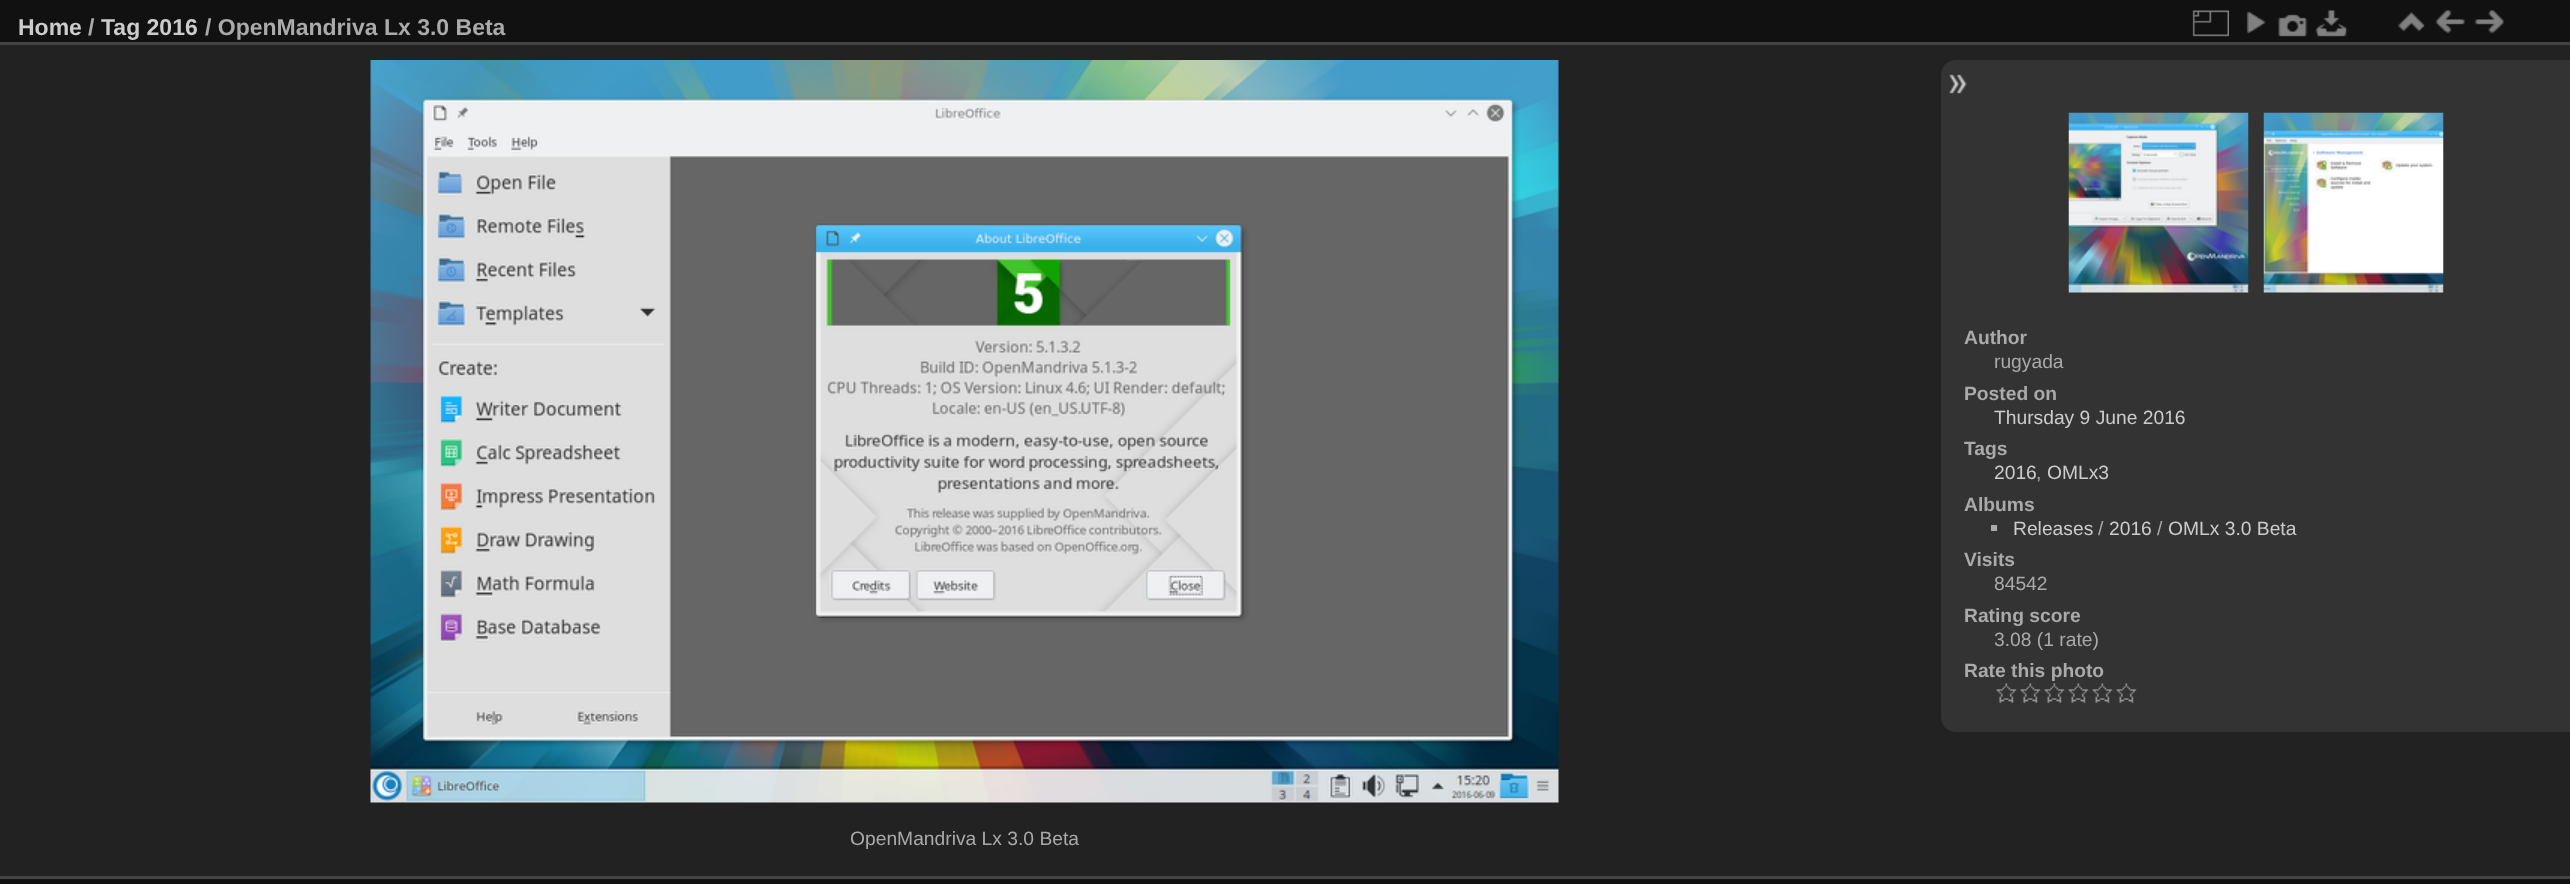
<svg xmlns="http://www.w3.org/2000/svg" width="2570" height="884">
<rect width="100%" height="100%" fill="#111"/>
<rect y="45" width="2570" height="831" fill="#222"/>
<rect y="876" width="2570" height="3" fill="#444"/>
<rect y="42" width="2570" height="3" fill="#444"/>
<text x="18" y="35" style="font-family:Liberation Sans;font-size:23px;font-weight:bold;fill:#ccc">Home</text>
<text x="88" y="35" style="font-family:Liberation Sans;font-size:23px;font-weight:bold;fill:#aaa">/</text>
<text x="101" y="35" style="font-family:Liberation Sans;font-size:23px;font-weight:bold;fill:#ccc">Tag 2016</text>
<text x="205" y="35" style="font-family:Liberation Sans;font-size:23px;font-weight:bold;fill:#aaa">/ OpenMandriva Lx 3.0 Beta</text>
<image x="2192" y="10" width="37" height="27" href="media/1.png"/>
<image x="2246" y="11" width="20" height="23" href="media/2.png"/>
<image x="2278" y="14" width="30" height="23" href="media/3.png"/>
<image x="2315" y="10" width="33" height="27" href="media/4.png"/>
<image x="2398" y="11" width="27" height="21" href="media/5.png"/>
<image x="2435" y="10" width="30" height="24" href="media/6.png"/>
<image x="2474" y="10" width="30" height="24" href="media/7.png"/>
<path d="M1956 60h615v672h-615c-8.5 0-15-6.5-15-15v-642c0-8.5 6.5-15 15-15z" fill="#333"/>
<image x="1949" y="74" width="18" height="20" href="media/8.png"/>
<image x="2068" y="112" width="181" height="181" href="media/9.png"/>
<image x="2263" y="112" width="181" height="181" href="media/10.png"/>
<text x="1964" y="344" style="font-family:Liberation Sans;font-size:19.25px;font-weight:bold;fill:#aaa">Author</text>
<text x="1994" y="368" style="font-family:Liberation Sans;font-size:19.25px;fill:#aaa">rugyada</text>
<text x="1964" y="400" style="font-family:Liberation Sans;font-size:19.25px;font-weight:bold;fill:#aaa">Posted on</text>
<text x="1994" y="424" style="font-family:Liberation Sans;font-size:19.25px;fill:#ccc">Thursday 9 June 2016</text>
<text x="1964" y="455" style="font-family:Liberation Sans;font-size:19.25px;font-weight:bold;fill:#aaa">Tags</text>
<text x="1994" y="479" style="font-family:Liberation Sans;font-size:19.25px;fill:#ccc">2016</text>
<text x="2036" y="479" style="font-family:Liberation Sans;font-size:19.25px;fill:#aaa">,</text>
<text x="2047" y="479" style="font-family:Liberation Sans;font-size:19.25px;fill:#ccc">OMLx3</text>
<text x="1964" y="511" style="font-family:Liberation Sans;font-size:19.25px;font-weight:bold;fill:#aaa">Albums</text>
<rect x="1991" y="525" width="6" height="6" fill="#aaa"/>
<text x="2013" y="535" style="font-family:Liberation Sans;font-size:19.25px;fill:#ccc">Releases</text>
<text x="2098" y="535" style="font-family:Liberation Sans;font-size:19.25px;fill:#aaa">/</text>
<text x="2109" y="535" style="font-family:Liberation Sans;font-size:19.25px;fill:#ccc">2016</text>
<text x="2157" y="535" style="font-family:Liberation Sans;font-size:19.25px;fill:#aaa">/</text>
<text x="2168" y="535" style="font-family:Liberation Sans;font-size:19.25px;fill:#ccc">OMLx 3.0 Beta</text>
<text x="1964" y="566" style="font-family:Liberation Sans;font-size:19.25px;font-weight:bold;fill:#aaa">Visits</text>
<text x="1994" y="590" style="font-family:Liberation Sans;font-size:19.25px;fill:#aaa">84542</text>
<text x="1964" y="622" style="font-family:Liberation Sans;font-size:19.25px;font-weight:bold;fill:#aaa">Rating score</text>
<text x="1994" y="646" style="font-family:Liberation Sans;font-size:19.25px;fill:#aaa">3.08 (1 rate)</text>
<text x="1964" y="677" style="font-family:Liberation Sans;font-size:19.25px;font-weight:bold;fill:#aaa">Rate this photo</text>
<image x="1996" y="683" width="21" height="20" href="media/11.png"/>
<image x="2020" y="683" width="21" height="20" href="media/11.png"/>
<image x="2044" y="683" width="21" height="20" href="media/12.png"/>
<image x="2068" y="683" width="21" height="20" href="media/13.png"/>
<image x="2092" y="683" width="21" height="20" href="media/13.png"/>
<image x="2116" y="683" width="21" height="20" href="media/13.png"/>
<image x="370" y="60" width="1189" height="743" href="media/14.png"/>
<text x="850" y="845" style="font-family:Liberation Sans;font-size:19.25px;fill:#aaa">OpenMandriva Lx 3.0 Beta</text>
</svg>
